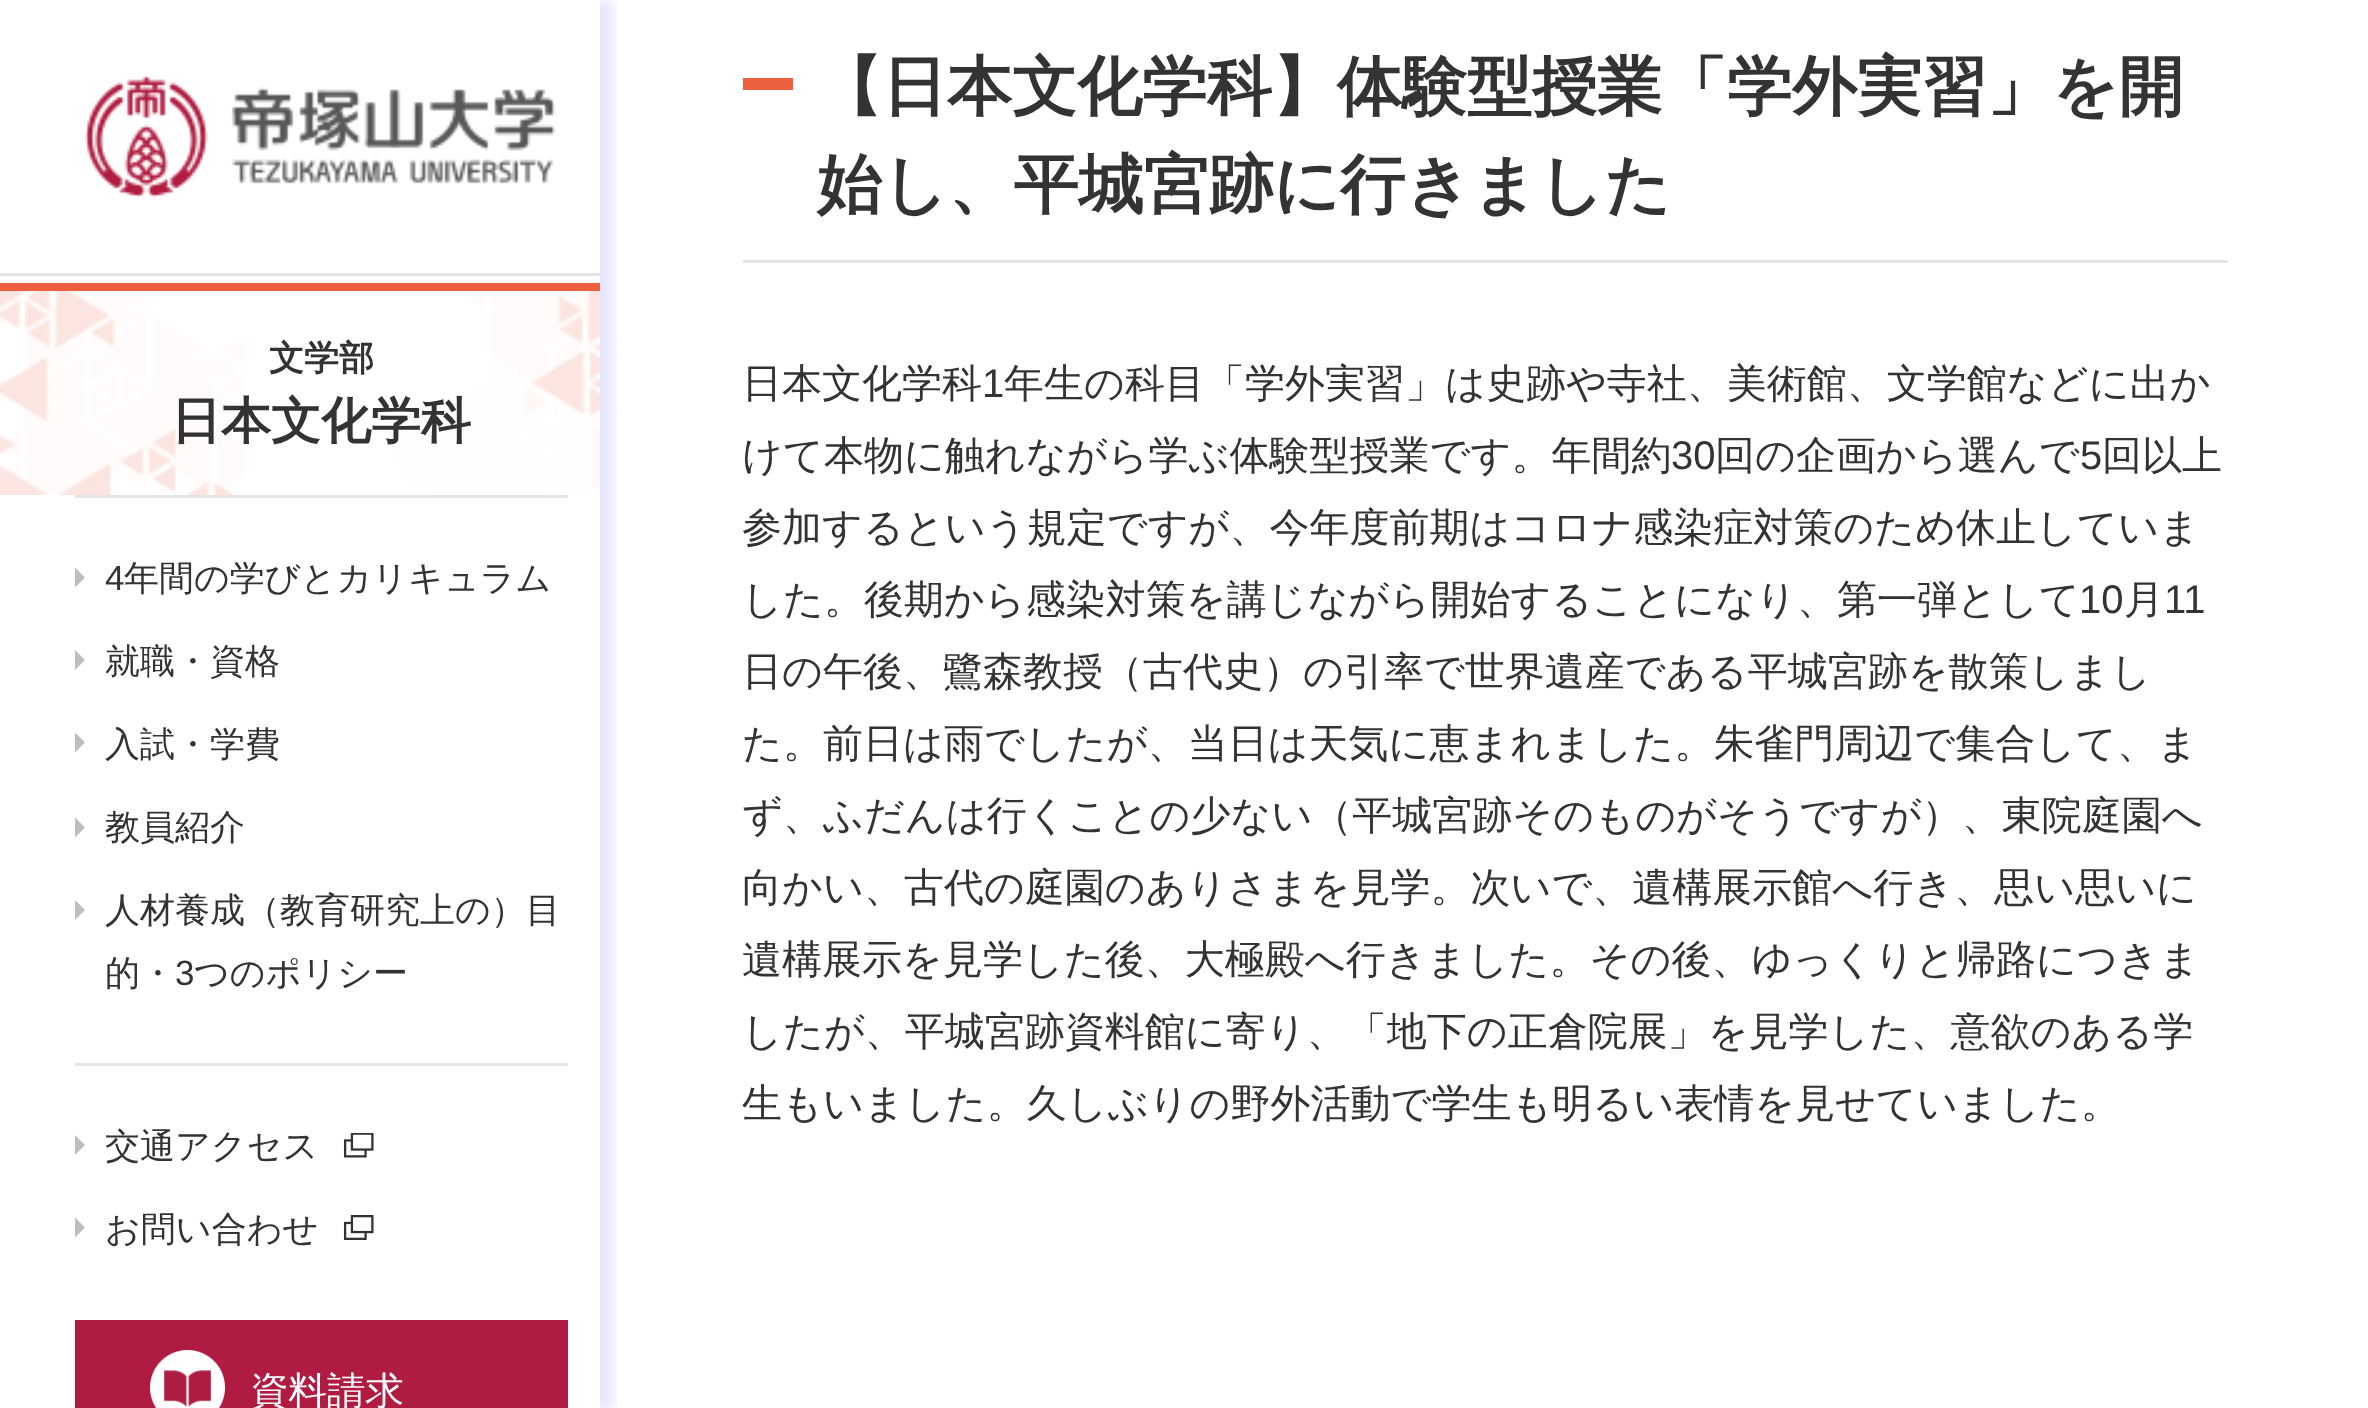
<svg xmlns="http://www.w3.org/2000/svg" width="2368" height="1408">
<defs>
<clipPath id="clip1"><rect x="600" y="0" width="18" height="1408"/></clipPath>
</defs>
<rect width="100%" height="100%" fill="#fff"/>
<g clip-path="url(#clip1)">
<rect x="13" width="600" height="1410" fill="#0000ff1a" filter="blur(6px)"/>
</g>
<rect y="273" width="600" height="3" fill="#e5e5e5"/>
<image x="84" y="75" width="472" height="123" href="media/1.png"/>
<image x="0" y="291" width="600" height="204" href="media/2.png"/>
<rect y="283" width="600" height="8" fill="#ed603d"/>
<text x="269" y="370" style="font-family:WenQuanYi Zen Hei;font-size:35px;font-weight:bold;fill:#333">文学部</text>
<text x="171" y="438" style="font-family:WenQuanYi Zen Hei;font-size:50px;font-weight:bold;fill:#333">日本文化学科</text>
<rect x="75" y="495" width="493" height="3" fill="#e5e5e5"/>
<path d="M75 587.5v-20l10 10" fill="#bebebe"/>
<text x="105" y="590" style="font-family:Liberation Sans;font-size:35px;fill:#333">4</text>
<text x="124" y="590" style="font-family:WenQuanYi Zen Hei;font-size:35px;font-weight:500;fill:#333">年間の学びとカリキュラム</text>
<path d="M75 670v-20l10 10" fill="#bebebe"/>
<text x="105" y="673" style="font-family:WenQuanYi Zen Hei;font-size:35px;font-weight:500;fill:#333">就職・資格</text>
<path d="M75 752.5v-20l10 10" fill="#bebebe"/>
<text x="105" y="756" style="font-family:WenQuanYi Zen Hei;font-size:35px;font-weight:500;fill:#333">入試・学費</text>
<path d="M75 837.5v-20l10 10" fill="#bebebe"/>
<text x="105" y="839" style="font-family:WenQuanYi Zen Hei;font-size:35px;font-weight:500;fill:#333">教員紹介</text>
<path d="M75 920v-20l10 10" fill="#bebebe"/>
<text x="105" y="922" style="font-family:WenQuanYi Zen Hei;font-size:35px;font-weight:500;fill:#333">人材養成（教育研究上の）目</text>
<text x="105" y="985" style="font-family:WenQuanYi Zen Hei;font-size:35px;font-weight:500;fill:#333">的・</text>
<text x="175" y="985" style="font-family:Liberation Sans;font-size:35px;fill:#333">3</text>
<text x="194" y="985" style="font-family:WenQuanYi Zen Hei;font-size:35px;font-weight:500;fill:#333">つのポリシー</text>
<rect x="75" y="1063" width="493" height="3" fill="#e5e5e5"/>
<path d="M75 1155v-20l10 10" fill="#bebebe"/>
<text x="105" y="1158" style="font-family:WenQuanYi Zen Hei;font-size:35px;font-weight:500;fill:#333">交通アクセス</text>
<image x="343" y="1133" width="31" height="25" href="media/3.png"/>
<path d="M75 1237.5v-20l10 10" fill="#bebebe"/>
<text x="105" y="1241" style="font-family:WenQuanYi Zen Hei;font-size:35px;font-weight:500;fill:#333">お問い合わせ</text>
<image x="343" y="1215" width="31" height="25" href="media/4.png"/>
<rect x="75" y="1320" width="493" height="88" fill="#b01b41"/>
<image x="150" y="1350" width="75" height="58" href="media/5.png"/>
<text x="250" y="1404" style="font-family:WenQuanYi Zen Hei;font-size:38.5px;font-weight:500;fill:#fff">資料請求</text>
<rect x="743" y="260" width="1485" height="3" fill="#e5e5e5"/>
<rect x="743" y="78" width="50" height="12" fill="#ed603d"/>
<text x="817" y="109" style="font-family:WenQuanYi Zen Hei;font-size:65px;font-weight:bold;fill:#333">【日本文化学科】体験型授業「学外実習」を開</text>
<text x="817" y="207" style="font-family:WenQuanYi Zen Hei;font-size:65px;font-weight:bold;fill:#333">始し、平城宮跡に行きました</text>
<text x="742" y="397" style="font-family:WenQuanYi Zen Hei;font-size:40px;font-weight:500;fill:#333">日本文化学科</text>
<text x="982" y="397" style="font-family:Liberation Sans;font-size:40px;fill:#333">1</text>
<text x="1004" y="397" style="font-family:WenQuanYi Zen Hei;font-size:40px;font-weight:500;fill:#333">年生の科目「学外実習」は史跡や寺社、美術館、文学館などに出か</text>
<text x="742" y="469" style="font-family:WenQuanYi Zen Hei;font-size:40px;font-weight:500;fill:#333">けて本物に触れながら学ぶ体験型授業です。年間約</text>
<text x="1671" y="469" style="font-family:Liberation Sans;font-size:40px;fill:#333">30</text>
<text x="1715" y="469" style="font-family:WenQuanYi Zen Hei;font-size:40px;font-weight:500;fill:#333">回の企画から選んで</text>
<text x="2080" y="469" style="font-family:Liberation Sans;font-size:40px;fill:#333">5</text>
<text x="2102" y="469" style="font-family:WenQuanYi Zen Hei;font-size:40px;font-weight:500;fill:#333">回以上</text>
<text x="742" y="541" style="font-family:WenQuanYi Zen Hei;font-size:40px;font-weight:500;fill:#333">参加するという規定ですが、今年度前期はコロナ感染症対策のため休止していま</text>
<text x="742" y="613" style="font-family:WenQuanYi Zen Hei;font-size:40px;font-weight:500;fill:#333">した。後期から感染対策を講じながら開始することになり、第一弾として</text>
<text x="2079" y="613" style="font-family:Liberation Sans;font-size:40px;fill:#333">10</text>
<text x="2124" y="613" style="font-family:WenQuanYi Zen Hei;font-size:40px;font-weight:500;fill:#333">月</text>
<text x="2164" y="613" style="font-family:Liberation Sans;font-size:40px;fill:#333">11</text>
<text x="742" y="685" style="font-family:WenQuanYi Zen Hei;font-size:40px;font-weight:500;fill:#333">日の午後、鷺森教授（古代史）の引率で世界遺産である平城宮跡を散策しまし</text>
<text x="742" y="757" style="font-family:WenQuanYi Zen Hei;font-size:40px;font-weight:500;fill:#333">た。前日は雨でしたが、当日は天気に恵まれました。朱雀門周辺で集合して、ま</text>
<text x="742" y="829" style="font-family:WenQuanYi Zen Hei;font-size:40px;font-weight:500;fill:#333">ず、ふだんは行くことの少ない（平城宮跡そのものがそうですが）、東院庭園へ</text>
<text x="742" y="901" style="font-family:WenQuanYi Zen Hei;font-size:40px;font-weight:500;fill:#333">向かい、古代の庭園のありさまを見学。次いで、遺構展示館へ行き、思い思いに</text>
<text x="742" y="973" style="font-family:WenQuanYi Zen Hei;font-size:40px;font-weight:500;fill:#333">遺構展示を見学した後、大極殿へ行きました。その後、ゆっくりと帰路につきま</text>
<text x="742" y="1045" style="font-family:WenQuanYi Zen Hei;font-size:40px;font-weight:500;fill:#333">したが、平城宮跡資料館に寄り、「地下の正倉院展」を見学した、意欲のある学</text>
<text x="742" y="1117" style="font-family:WenQuanYi Zen Hei;font-size:40px;font-weight:500;fill:#333">生もいました。久しぶりの野外活動で学生も明るい表情を見せていました。</text>
</svg>
